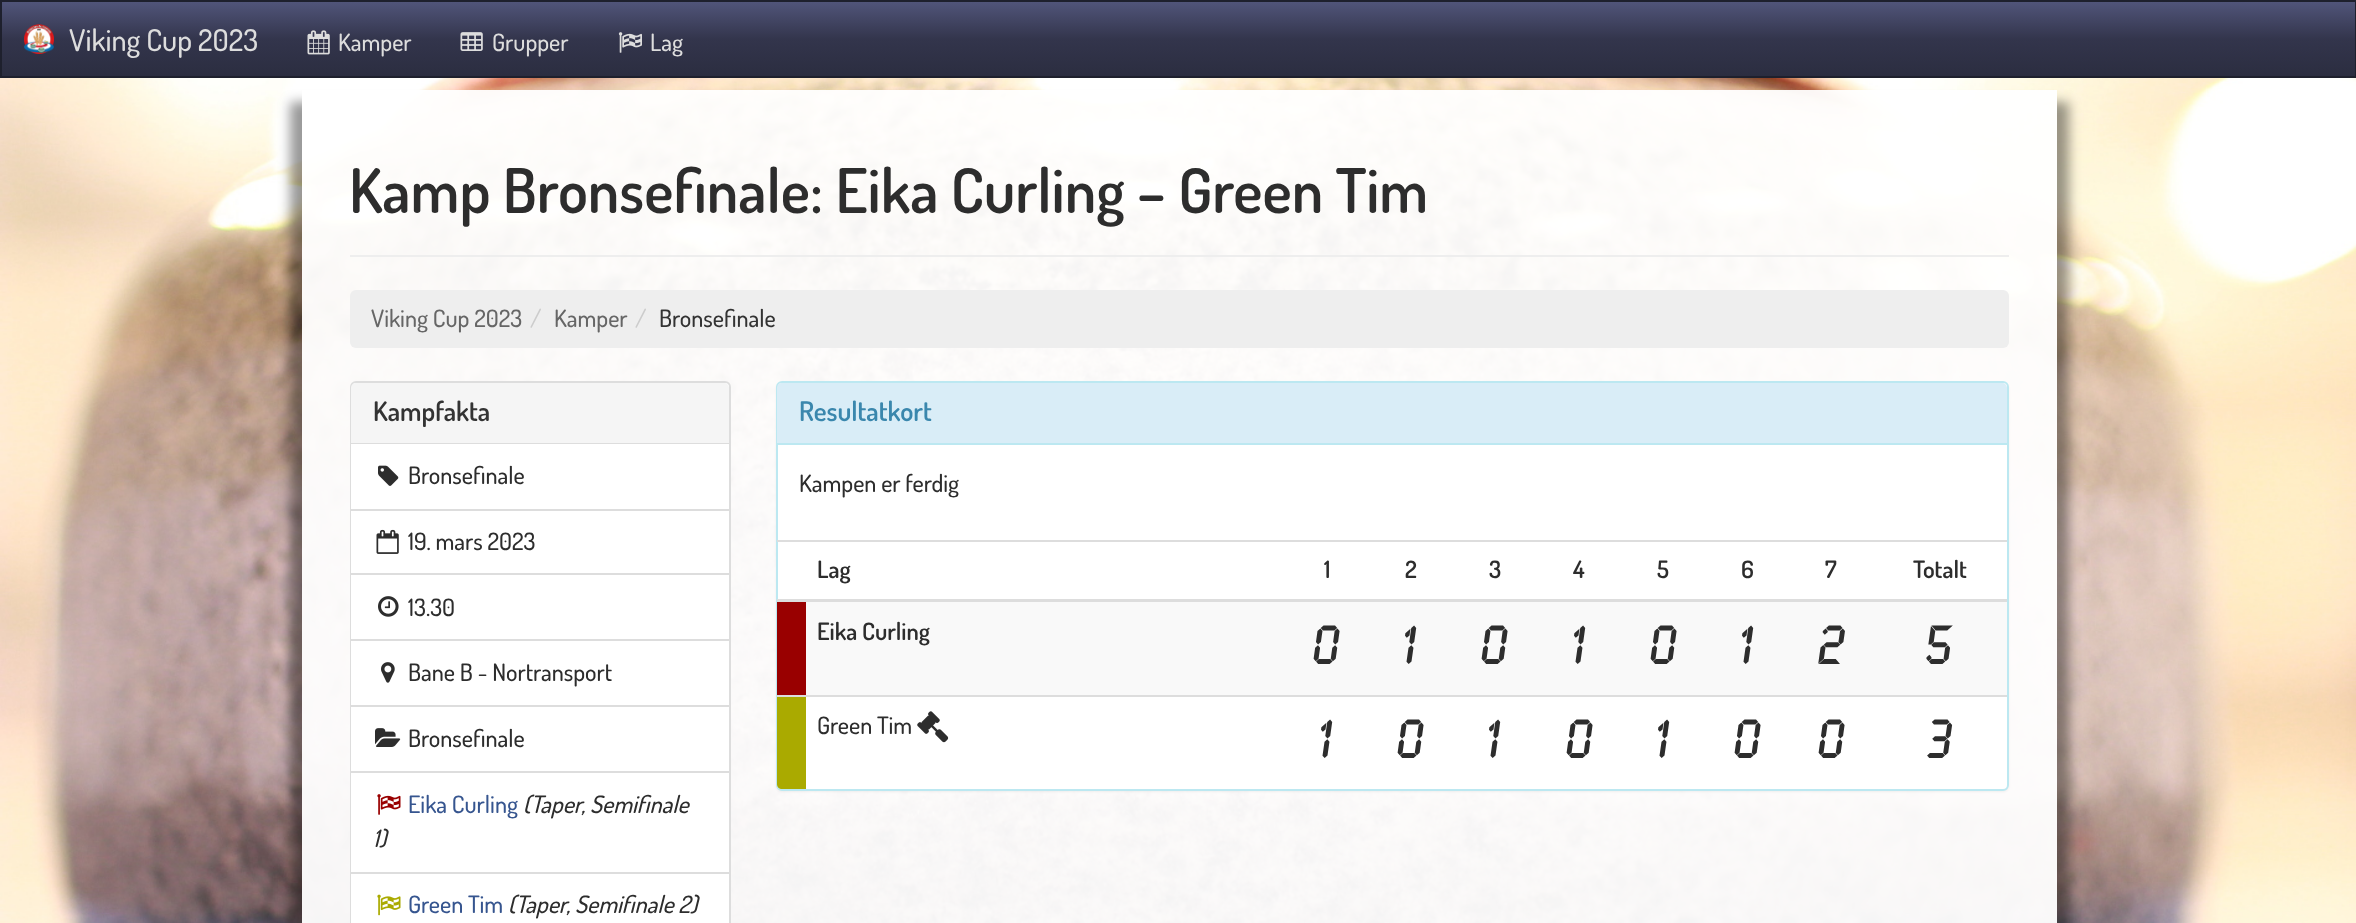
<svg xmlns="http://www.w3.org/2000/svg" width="2356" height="923">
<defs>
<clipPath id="clip1"><path d="M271 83h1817v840h-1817zm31 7h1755v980h-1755z" clip-rule="evenodd"/></clipPath>
<linearGradient id="g1" gradientUnits="userSpaceOnUse" x1="1178" y1="1.5" x2="1178" y2="77"><stop offset="0" stop-color="#51557a"/><stop offset="0.5" stop-color="#33354c"/><stop offset="1" stop-color="#2b2d40"/></linearGradient>
</defs>
<rect width="100%" height="100%" fill="#fff"/>
<image x="0" y="78" width="2356" height="845" href="media/1.png"/>
<g clip-path="url(#clip1)">
<rect x="290" y="102" width="1779" height="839" fill="#00000066" filter="blur(6px)"/>
</g>
<rect x="302" y="90" width="1755" height="833" fill="#fffffff2"/>
<rect x="2" y="2" width="2353" height="74" fill="url(#g1)"/>
<rect x="1" y="1" width="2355" height="76" fill="none" stroke="#1e202d" stroke-width="2"/>
<image x="24" y="24" width="30" height="30" href="media/2.png"/>
<text x="69" y="51" style="font-family:Dosis;font-size:30px;font-weight:500;fill:#ddd">Viking Cup 2023</text>
<image x="307" y="30" width="23" height="25" href="media/3.png"/>
<text x="338" y="51" style="font-family:Dosis;font-size:24px;font-weight:500;fill:#ddd">Kamper</text>
<image x="460" y="32" width="23" height="19" href="media/4.png"/>
<text x="492" y="51" style="font-family:Dosis;font-size:24px;font-weight:500;fill:#ddd">Grupper</text>
<image x="618" y="32" width="24" height="21" href="media/5.png"/>
<text x="650" y="51" style="font-family:Dosis;font-size:24px;font-weight:500;fill:#ddd">Lag</text>
<rect x="350" y="255" width="1659" height="2" fill="#eee"/>
<text x="349" y="213" style="font-family:Dosis;font-size:61.5px;font-weight:600;fill:#2d2d2d">Kamp Bronsefinale: Eika Curling – Green Tim</text>
<rect x="350" y="290" width="1659" height="58" rx="6" fill="#eee"/>
<text x="371" y="327" style="font-family:Dosis;font-size:24px;font-weight:500;fill:#666">Viking Cup 2023</text>
<text x="530" y="327" style="font-family:Dosis;font-size:24px;font-weight:500;fill:#ccc">/</text>
<text x="554" y="327" style="font-family:Dosis;font-size:24px;font-weight:500;fill:#666">Kamper</text>
<text x="635" y="327" style="font-family:Dosis;font-size:24px;font-weight:500;fill:#ccc">/</text>
<text x="659" y="327" style="font-family:Dosis;font-size:24px;font-weight:500;fill:#333">Bronsefinale</text>
<rect x="351" y="382" width="379" height="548" rx="5" fill="#fff" stroke="#ddd" stroke-width="2"/>
<path d="M356 383h368c3 0 5 2 5 5v56h-378v-56c0-3 2-5 5-5z" fill="#f5f5f5"/>
<rect x="351" y="443" width="378" height="1" fill="#ddd"/>
<text x="373" y="421" style="font-family:Dosis;font-size:27px;font-weight:600;fill:#333">Kampfakta</text>
<rect x="351" y="444" width="1" height="65" fill="#fff"/>
<image x="378" y="465" width="21" height="21" href="media/6.png"/>
<text x="408" y="484" style="font-family:Dosis;font-size:24px;font-weight:500;fill:#2d2d2d">Bronsefinale</text>
<rect x="351" y="511" width="1" height="62" fill="#fff"/>
<rect x="351" y="509" width="378" height="2" fill="#ddd"/>
<rect x="351" y="573" width="378" height="2" fill="#ddd"/>
<image x="376" y="529" width="23" height="25" href="media/7.png"/>
<text x="408" y="550" style="font-family:Dosis;font-size:24px;font-weight:500;fill:#2d2d2d">19. mars 2023</text>
<rect x="351" y="575" width="1" height="64" fill="#fff"/>
<rect x="351" y="639" width="378" height="2" fill="#ddd"/>
<image x="378" y="596" width="21" height="21" href="media/8.png"/>
<text x="408" y="616" style="font-family:Dosis;font-size:24px;font-weight:500;fill:#2d2d2d">13.30</text>
<rect x="351" y="641" width="1" height="64" fill="#fff"/>
<rect x="351" y="705" width="378" height="2" fill="#ddd"/>
<image x="381" y="662" width="14" height="21" href="media/9.png"/>
<text x="408" y="681" style="font-family:Dosis;font-size:24px;font-weight:500;fill:#2d2d2d">Bane B - Nortransport</text>
<rect x="351" y="707" width="1" height="64" fill="#fff"/>
<rect x="351" y="771" width="378" height="2" fill="#ddd"/>
<image x="375" y="728" width="26" height="19" href="media/10.png"/>
<text x="408" y="747" style="font-family:Dosis;font-size:24px;font-weight:500;fill:#2d2d2d">Bronsefinale</text>
<rect x="351" y="773" width="1" height="99" fill="#fff"/>
<image x="377" y="794" width="24" height="21" href="media/11.png"/>
<text x="408" y="813" style="font-family:Dosis;font-size:24px;font-weight:500;fill:#36558f">Eika Curling</text>
<text x="523" y="813" style="font-family:Dosis;font-size:24px;font-weight:500;font-style:italic;fill:#2d2d2d">(Taper, Semifinale</text>
<text x="373" y="847" style="font-family:Dosis;font-size:24px;font-weight:500;font-style:italic;fill:#2d2d2d">1)</text>
<rect x="351" y="874" width="1" height="49" fill="#fff"/>
<rect x="351" y="872" width="378" height="2" fill="#ddd"/>
<image x="377" y="894" width="24" height="22" href="media/12.png"/>
<text x="408" y="913" style="font-family:Dosis;font-size:24px;font-weight:500;fill:#36558f">Green Tim</text>
<text x="508" y="913" style="font-family:Dosis;font-size:24px;font-weight:500;font-style:italic;fill:#2d2d2d">(Taper, Semifinale 2)</text>
<rect x="776" y="383" width="1233" height="409" rx="6" fill="#0000000d" filter="blur(1px)"/>
<rect x="777" y="382" width="1231" height="408" rx="5" fill="#fff" stroke="#bce8f1" stroke-width="2"/>
<path d="M782 383h1220c3 0 5 2 5 5v56h-1230v-56c0-3 2-5 5-5z" fill="#d9edf7"/>
<rect x="777" y="443" width="1230" height="2" fill="#bce8f1"/>
<text x="799" y="421" style="font-family:Dosis;font-size:27px;font-weight:600;fill:#3a87ad">Resultatkort</text>
<text x="799" y="492" style="font-family:Dosis;font-size:24px;font-weight:500;fill:#2d2d2d">Kampen er ferdig</text>
<rect x="777" y="540" width="1230" height="2" fill="#ddd"/>
<text x="817" y="578" style="font-family:Dosis;font-size:24px;font-weight:600;fill:#2d2d2d">Lag</text>
<text x="1324" y="578" style="font-family:Dosis;font-size:24px;font-weight:600;fill:#2d2d2d">1</text>
<text x="1405" y="578" style="font-family:Dosis;font-size:24px;font-weight:600;fill:#2d2d2d">2</text>
<text x="1489" y="578" style="font-family:Dosis;font-size:24px;font-weight:600;fill:#2d2d2d">3</text>
<text x="1573" y="578" style="font-family:Dosis;font-size:24px;font-weight:600;fill:#2d2d2d">4</text>
<text x="1657" y="578" style="font-family:Dosis;font-size:24px;font-weight:600;fill:#2d2d2d">5</text>
<text x="1741" y="578" style="font-family:Dosis;font-size:24px;font-weight:600;fill:#2d2d2d">6</text>
<text x="1825" y="578" style="font-family:Dosis;font-size:24px;font-weight:600;fill:#2d2d2d">7</text>
<rect x="777" y="599" width="1230" height="3" fill="#ddd"/>
<text x="1913" y="578" style="font-family:Dosis;font-size:24px;font-weight:600;fill:#2d2d2d">Totalt</text>
<rect x="806" y="602" width="1201" height="93" fill="#f9f9f9"/>
<rect x="777" y="602" width="29" height="93" fill="#900"/>
<text x="817" y="640" style="font-family:Dosis;font-size:24px;font-weight:600;fill:#2d2d2d">Eika Curling</text>
<text x="1314" y="664" style="font-family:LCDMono;font-size:48px;font-weight:bold;fill:#2d2d2d">0</text>
<text x="1398" y="664" style="font-family:LCDMono;font-size:48px;font-weight:bold;fill:#2d2d2d">1</text>
<text x="1482" y="664" style="font-family:LCDMono;font-size:48px;font-weight:bold;fill:#2d2d2d">0</text>
<text x="1567" y="664" style="font-family:LCDMono;font-size:48px;font-weight:bold;fill:#2d2d2d">1</text>
<text x="1651" y="664" style="font-family:LCDMono;font-size:48px;font-weight:bold;fill:#2d2d2d">0</text>
<text x="1735" y="664" style="font-family:LCDMono;font-size:48px;font-weight:bold;fill:#2d2d2d">1</text>
<text x="1819" y="664" style="font-family:LCDMono;font-size:48px;font-weight:bold;fill:#2d2d2d">2</text>
<text x="1927" y="664" style="font-family:LCDMono;font-size:48px;font-weight:bold;fill:#2d2d2d">5</text>
<path d="M777 696h29v93h-24c-3 0-5-2-5-5z" fill="#aa0"/>
<text x="817" y="734" style="font-family:Dosis;font-size:24px;font-weight:500;fill:#2d2d2d">Green Tim</text>
<image x="917" y="711" width="32" height="32" href="media/13.png"/>
<text x="1314" y="758" style="font-family:LCDMono;font-size:48px;font-weight:bold;fill:#2d2d2d">1</text>
<text x="1398" y="758" style="font-family:LCDMono;font-size:48px;font-weight:bold;fill:#2d2d2d">0</text>
<text x="1482" y="758" style="font-family:LCDMono;font-size:48px;font-weight:bold;fill:#2d2d2d">1</text>
<text x="1567" y="758" style="font-family:LCDMono;font-size:48px;font-weight:bold;fill:#2d2d2d">0</text>
<text x="1651" y="758" style="font-family:LCDMono;font-size:48px;font-weight:bold;fill:#2d2d2d">1</text>
<text x="1735" y="758" style="font-family:LCDMono;font-size:48px;font-weight:bold;fill:#2d2d2d">0</text>
<text x="1819" y="758" style="font-family:LCDMono;font-size:48px;font-weight:bold;fill:#2d2d2d">0</text>
<rect x="777" y="695" width="1230" height="2" fill="#ddd"/>
<text x="1927" y="758" style="font-family:LCDMono;font-size:48px;font-weight:bold;fill:#2d2d2d">3</text>
</svg>
